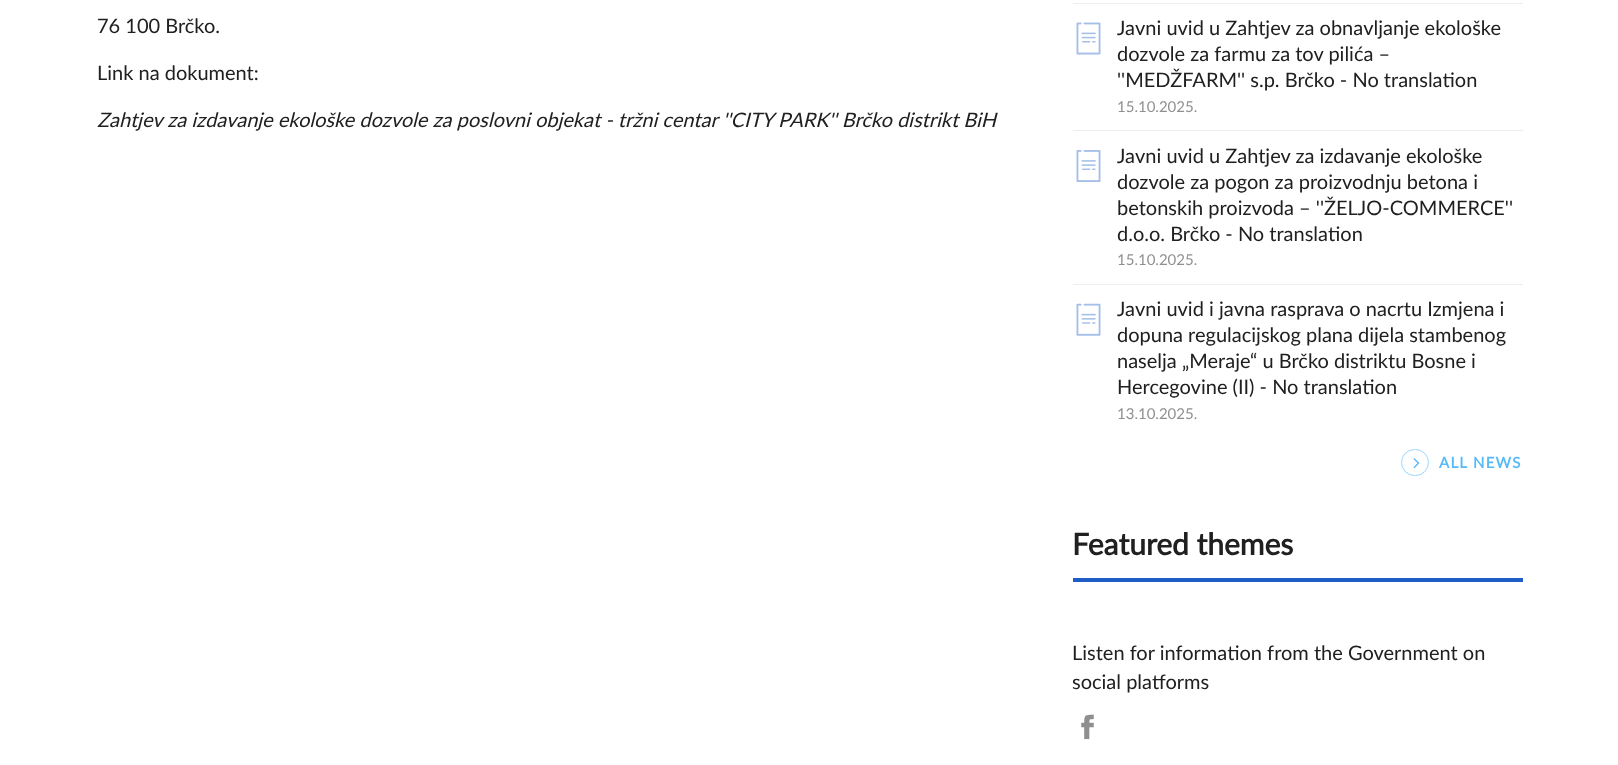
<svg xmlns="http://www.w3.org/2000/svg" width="1618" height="765">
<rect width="100%" height="100%" fill="#fff"/>
<text x="97" y="33" style="font-family:Lato;font-size:20px;fill:#202020">76 100 Brčko.</text>
<text x="97" y="80" style="font-family:Lato;font-size:20px;fill:#202020">Link na dokument:</text>
<text x="97" y="127" style="font-family:Lato;font-size:20px;font-style:italic;fill:#202020">Zahtjev za izdavanje ekološke dozvole za poslovni objekat - tržni centar ''CITY PARK'' Brčko distrikt BiH</text>
<rect x="1073" y="3" width="450" height="1" fill="#ededed"/>
<image x="1076" y="22" width="25" height="33" href="media/1.png"/>
<text x="1117" y="35" style="font-family:Lato;font-size:20px;fill:#202020">Javni uvid u Zahtjev za obnavlјanje ekološke</text>
<text x="1117" y="61" style="font-family:Lato;font-size:20px;fill:#202020">dozvole za farmu za tov pilića –</text>
<text x="1117" y="87" style="font-family:Lato;font-size:20px;fill:#202020">''MEDŽFARM'' s.p. Brčko - No translation</text>
<text x="1117" y="112" style="font-family:Lato;font-size:15px;fill:#909090">15.10.2025.</text>
<rect x="1073" y="130" width="450" height="1" fill="#ededed"/>
<image x="1076" y="150" width="25" height="32" href="media/2.png"/>
<text x="1117" y="163" style="font-family:Lato;font-size:20px;fill:#202020">Javni uvid u Zahtjev za izdavanje ekološke</text>
<text x="1117" y="189" style="font-family:Lato;font-size:20px;fill:#202020">dozvole za pogon za proizvodnju betona i</text>
<text x="1117" y="215" style="font-family:Lato;font-size:20px;fill:#202020">betonskih proizvoda – ''ŽELJO-COMMERCE''</text>
<text x="1117" y="241" style="font-family:Lato;font-size:20px;fill:#202020">d.o.o. Brčko - No translation</text>
<text x="1117" y="265" style="font-family:Lato;font-size:15px;fill:#909090">15.10.2025.</text>
<rect x="1073" y="284" width="450" height="1" fill="#ededed"/>
<image x="1076" y="303" width="25" height="33" href="media/3.png"/>
<text x="1117" y="316" style="font-family:Lato;font-size:20px;fill:#202020">Javni uvid i javna rasprava o nacrtu Izmjena i</text>
<text x="1117" y="342" style="font-family:Lato;font-size:20px;fill:#202020">dopuna regulacijskog plana dijela stambenog</text>
<text x="1117" y="368" style="font-family:Lato;font-size:20px;fill:#202020">naselja „Meraje“ u Brčko distriktu Bosne i</text>
<text x="1117" y="394" style="font-family:Lato;font-size:20px;fill:#202020">Hercegovine (II) - No translation</text>
<text x="1117" y="419" style="font-family:Lato;font-size:15px;fill:#909090">13.10.2025.</text>
<rect x="1401.5" y="449.5" width="27" height="26" rx="13" fill="none" stroke="#9ad6fa"/>
<image x="1413" y="458" width="7" height="11" href="media/4.png"/>
<text x="1439" y="468" style="font-family:Lato;font-size:15px;font-weight:bold;letter-spacing:1.25px;fill:#57baf7">ALL NEWS</text>
<rect x="1073" y="578" width="450" height="4" fill="#1f5ec7"/>
<text x="1072" y="555" style="font-family:Lato;font-size:30px;font-weight:bold;fill:#202020">Featured themes</text>
<text x="1072" y="660" style="font-family:Lato;font-size:20px;fill:#202020">Listen for information from the Government on</text>
<text x="1072" y="689" style="font-family:Lato;font-size:20px;fill:#202020">social platforms</text>
<image x="1081" y="714" width="13" height="26" href="media/5.png"/>
</svg>
